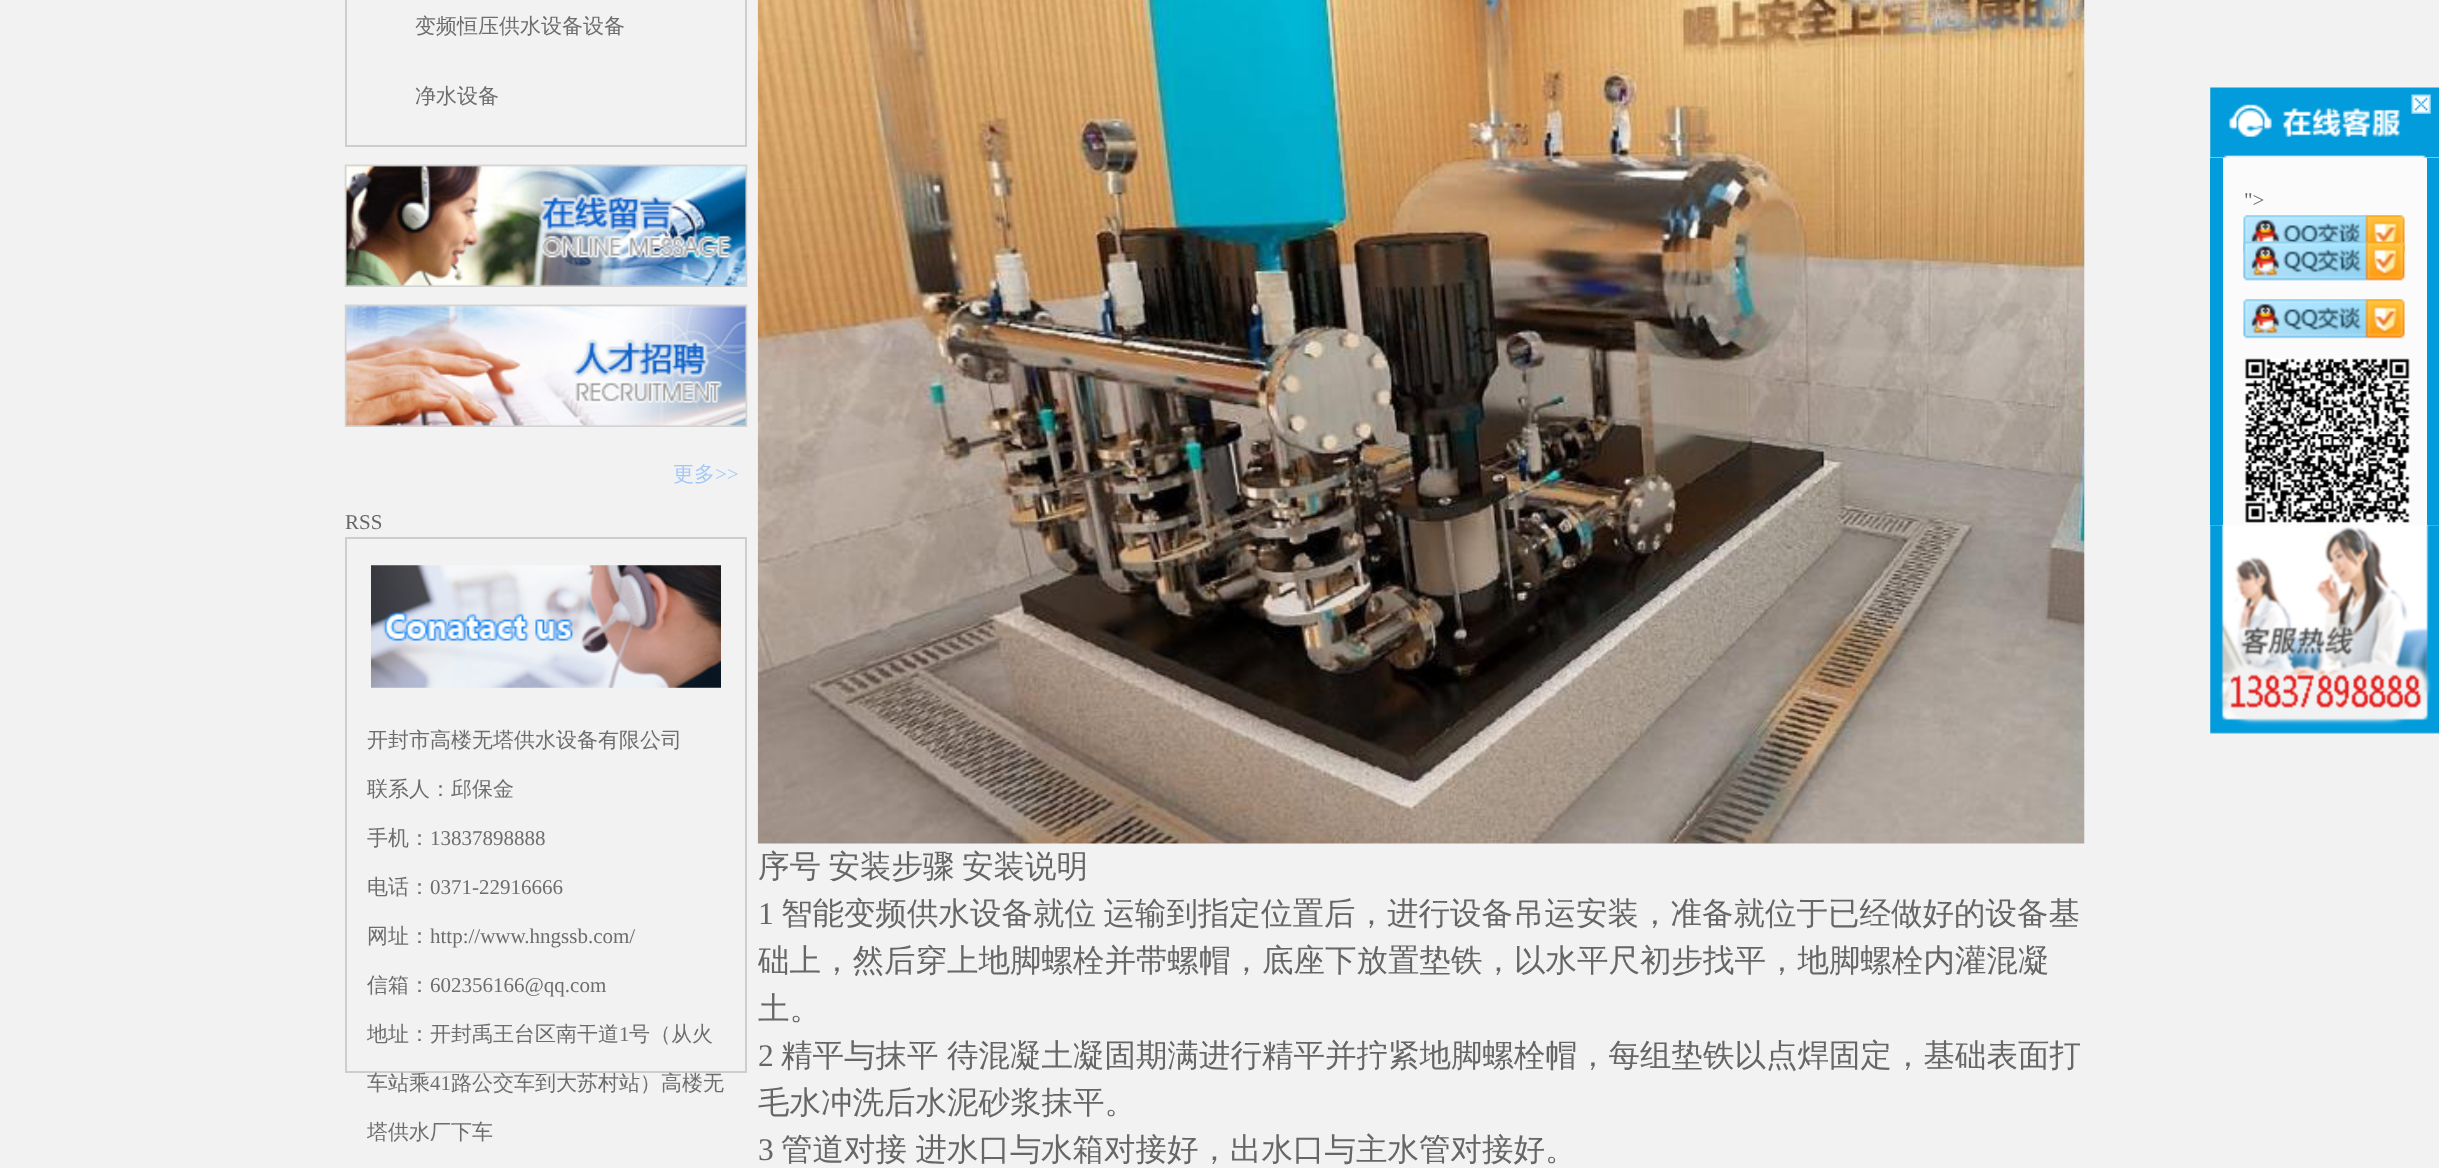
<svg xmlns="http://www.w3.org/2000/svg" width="2439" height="1168">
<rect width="100%" height="100%" fill="#f2f2f2"/>
<rect x="346" y="-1" width="400" height="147" fill="none" stroke="#cdcdcd" stroke-width="2"/>
<text x="415" y="33" style="font-family:WenQuanYi Zen Hei;font-size:21px;font-weight:500;fill:#6d6d6d">变频恒压供水设备设备</text>
<text x="415" y="103" style="font-family:WenQuanYi Zen Hei;font-size:21px;font-weight:500;fill:#6d6d6d">净水设备</text>
<image x="344" y="164" width="404" height="123" href="media/1.png"/>
<image x="344" y="304" width="404" height="123" href="media/2.png"/>
<text x="673" y="481" style="font-family:WenQuanYi Zen Hei;font-size:21px;font-weight:500;fill:#a4c8f5">更多</text>
<text x="715" y="481" style="font-family:Liberation Serif;font-size:21px;fill:#a4c8f5">&gt;&gt;</text>
<text x="345" y="529" style="font-family:Liberation Serif;font-size:21px;fill:#666">RSS</text>
<rect x="346" y="538" width="400" height="534" fill="none" stroke="#cdcdcd" stroke-width="2"/>
<image x="371" y="565" width="350" height="123" href="media/3.png"/>
<text x="367" y="747" style="font-family:WenQuanYi Zen Hei;font-size:21px;font-weight:500;fill:#6d6d6d">开封市高楼无塔供水设备有限公司</text>
<text x="367" y="796" style="font-family:WenQuanYi Zen Hei;font-size:21px;font-weight:500;fill:#6d6d6d">联系人：邱保金</text>
<text x="367" y="845" style="font-family:WenQuanYi Zen Hei;font-size:21px;font-weight:500;fill:#6d6d6d">手机：</text>
<text x="430" y="845" style="font-family:Liberation Serif;font-size:21px;fill:#6d6d6d">13837898888</text>
<text x="367" y="894" style="font-family:WenQuanYi Zen Hei;font-size:21px;font-weight:500;fill:#6d6d6d">电话：</text>
<text x="430" y="894" style="font-family:Liberation Serif;font-size:21px;fill:#6d6d6d">0371-22916666</text>
<text x="367" y="943" style="font-family:WenQuanYi Zen Hei;font-size:21px;font-weight:500;fill:#6d6d6d">网址：</text>
<text x="430" y="943" style="font-family:Liberation Serif;font-size:21px;fill:#6d6d6d">http://www.hngssb.com/</text>
<text x="367" y="992" style="font-family:WenQuanYi Zen Hei;font-size:21px;font-weight:500;fill:#6d6d6d">信箱：</text>
<text x="430" y="992" style="font-family:Liberation Serif;font-size:21px;fill:#6d6d6d">602356166@qq.com</text>
<text x="367" y="1041" style="font-family:WenQuanYi Zen Hei;font-size:21px;font-weight:500;fill:#6d6d6d">地址：开封禹王台区南干道</text>
<text x="619" y="1041" style="font-family:Liberation Serif;font-size:21px;fill:#6d6d6d">1</text>
<text x="629" y="1041" style="font-family:WenQuanYi Zen Hei;font-size:21px;font-weight:500;fill:#6d6d6d">号（从火</text>
<text x="367" y="1090" style="font-family:WenQuanYi Zen Hei;font-size:21px;font-weight:500;fill:#6d6d6d">车站乘</text>
<text x="430" y="1090" style="font-family:Liberation Serif;font-size:21px;fill:#6d6d6d">41</text>
<text x="451" y="1090" style="font-family:WenQuanYi Zen Hei;font-size:21px;font-weight:500;fill:#6d6d6d">路公交车到大苏村站）高楼无</text>
<text x="367" y="1139" style="font-family:WenQuanYi Zen Hei;font-size:21px;font-weight:500;fill:#6d6d6d">塔供水厂下车</text>
<image x="2210" y="87" width="229" height="71" href="media/4.png"/>
<image x="2411" y="94" width="20" height="20" href="media/5.png"/>
<rect x="2223" y="158" width="204" height="367" fill="#fbfbfb"/>
<rect x="2427" y="158" width="12" height="367" fill="#029bdb"/>
<rect x="2210" y="158" width="13" height="367" fill="#029bdb"/>
<text x="2244" y="207" style="font-family:Liberation Serif;font-size:21px;fill:#666">"&gt;</text>
<image x="2243" y="215" width="162" height="39" href="media/6.png"/>
<image x="2243" y="241" width="163" height="40" href="media/7.png"/>
<image x="2243" y="299" width="162" height="40" href="media/8.png"/>
<image x="2244" y="358" width="166" height="165" href="media/9.png"/>
<image x="2210" y="524" width="229" height="210" href="media/10.png"/>
<image x="757" y="0" width="1328" height="844" href="media/11.png"/>
<text x="758" y="877" word-spacing="-2" style="font-family:WenQuanYi Zen Hei;font-size:31.5px;font-weight:500;fill:#666">序号 安装步骤 安装说明</text>
<text x="758" y="924" style="font-family:Liberation Serif;font-size:31.5px;fill:#666">1</text>
<text x="781" y="924" style="font-family:WenQuanYi Zen Hei;font-size:31.5px;font-weight:500;fill:#666">智能变频供水设备</text>
<text x="1033" y="924" word-spacing="-2" style="font-family:WenQuanYi Zen Hei;font-size:31.5px;font-weight:500;fill:#666">就位 运输到指定位置后，进行设备吊运安装，准备就位于已经做好的设备基</text>
<text x="758" y="971" style="font-family:WenQuanYi Zen Hei;font-size:31.5px;font-weight:500;fill:#666">础上，然后穿上地脚螺栓并带螺帽，底座下放置垫铁，以水平尺初步找平，地脚螺栓内灌混凝</text>
<text x="758" y="1019" style="font-family:WenQuanYi Zen Hei;font-size:31.5px;font-weight:500;fill:#666">土。</text>
<text x="758" y="1066" style="font-family:Liberation Serif;font-size:31.5px;fill:#666">2</text>
<text x="781" y="1066" word-spacing="-1" style="font-family:WenQuanYi Zen Hei;font-size:31.5px;font-weight:500;fill:#666">精平与抹平 待混凝土凝固期满进行精平并拧紧地脚螺栓帽，每组垫铁以点焊固定，基础表面打</text>
<text x="758" y="1113" style="font-family:WenQuanYi Zen Hei;font-size:31.5px;font-weight:500;fill:#666">毛水冲洗后水泥砂浆抹平。</text>
<text x="758" y="1160" style="font-family:Liberation Serif;font-size:31.5px;fill:#666">3</text>
<text x="781" y="1160" word-spacing="-1" style="font-family:WenQuanYi Zen Hei;font-size:31.5px;font-weight:500;fill:#666">管道对接 进水口与</text>
<text x="1041" y="1160" style="font-family:WenQuanYi Zen Hei;font-size:31.5px;font-weight:500;fill:#666">水箱对接好，出水口与主水管对接好。</text>
</svg>
